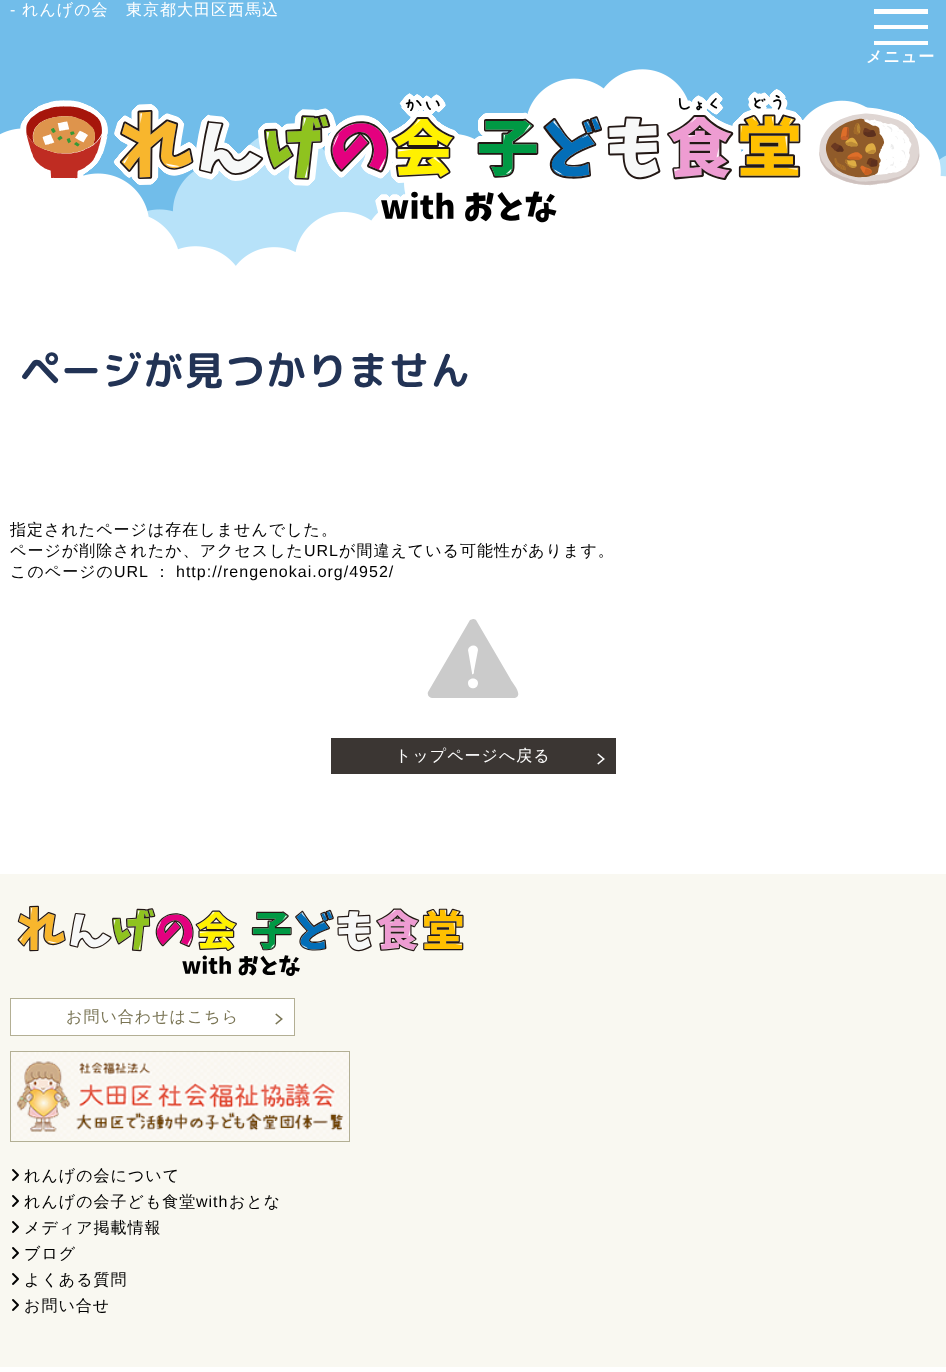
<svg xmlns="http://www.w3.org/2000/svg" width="946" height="1372">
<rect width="100%" height="100%" fill="#fff"/>
<image x="0" y="0" width="946" height="266" href="media/1.png"/>
<text x="10" y="15" style="font-family:Liberation Sans;font-size:16px;letter-spacing:1px;fill:#fff">-</text>
<text x="22" y="15" style="font-family:WenQuanYi Zen Hei;font-size:16px;font-weight:500;letter-spacing:1px;fill:#fff">れんげの会</text>
<text x="126" y="15" style="font-family:WenQuanYi Zen Hei;font-size:16px;font-weight:500;letter-spacing:1px;fill:#fff">東京都大田区西馬込</text>
<rect x="874" y="9" width="54" height="5" fill="#fff"/>
<rect x="874" y="25" width="54" height="4" fill="#fff"/>
<rect x="874" y="41" width="54" height="4" fill="#fff"/>
<text x="866" y="62" style="font-family:WenQuanYi Zen Hei;font-size:16px;font-weight:bold;letter-spacing:1px;fill:#fff">メニュー</text>
<image x="20" y="89" width="900" height="134" href="media/2.png"/>
<text x="20" y="385" style="font-family:'Rounded Mplus 1c Bold';font-size:40px;font-weight:bold;letter-spacing:1px;fill:#235">ページが見つかりません</text>
<text x="10" y="535" style="font-family:WenQuanYi Zen Hei;font-size:16px;font-weight:500;letter-spacing:1px;fill:#000">指定されたページは存在しませんでした。</text>
<text x="10" y="556" style="font-family:WenQuanYi Zen Hei;font-size:16px;font-weight:500;letter-spacing:1px;fill:#000">ページが削除されたか、アクセスした</text>
<text x="304" y="556" style="font-family:Liberation Sans;font-size:16px;letter-spacing:1px;fill:#000">URL</text>
<text x="339" y="556" style="font-family:WenQuanYi Zen Hei;font-size:16px;font-weight:500;letter-spacing:1px;fill:#000">が間違えている可能性があります。</text>
<text x="10" y="577" style="font-family:WenQuanYi Zen Hei;font-size:16px;font-weight:500;letter-spacing:1px;fill:#000">このページの</text>
<text x="114" y="577" style="font-family:Liberation Sans;font-size:16px;letter-spacing:1px;fill:#000">URL</text>
<text x="154" y="577" style="font-family:WenQuanYi Zen Hei;font-size:16px;font-weight:500;letter-spacing:1px;fill:#000">：</text>
<text x="176" y="577" style="font-family:Liberation Sans;font-size:16px;letter-spacing:1px;fill:#000">http://rengenokai.org/4952/</text>
<path d="M432 698c-3 0-5-3-4-6l42-72l3-1c1 0 2 0 3 1l35 60c0 1 11 13 6 17l-2 1z" fill="#cbcbcb"/>
<path d="M478 683c0 7-10 7-10 0c0-6 10-6 10 0zm0-33l-4 21c0 1 0 3-1 3c-1 1-1 0-1-1l-4-23c1-6 10-6 10 0z" fill="#fff"/>
<rect x="331" y="738" width="285" height="36" fill="#3b3633"/>
<text x="395" y="761" style="font-family:WenQuanYi Zen Hei;font-size:16px;font-weight:500;letter-spacing:1px;fill:#fff">トップページへ戻る</text>
<image x="597" y="753" width="8" height="12" href="media/3.png"/>
<rect y="874" width="946" height="493" fill="#f9f8f1"/>
<image x="17" y="905" width="447" height="71" href="media/4.png"/>
<rect x="10.5" y="998.5" width="284" height="37" fill="#fff" stroke="#b3af94"/>
<text x="66" y="1022" style="font-family:WenQuanYi Zen Hei;font-size:16px;font-weight:500;letter-spacing:1px;fill:#797454">お問い合わせはこちら</text>
<image x="275" y="1013" width="8" height="12" href="media/5.png"/>
<rect x="10.5" y="1051.5" width="339" height="90" fill="none" stroke="#b3af94"/>
<image x="11" y="1052" width="338" height="87" href="media/6.png"/>
<image x="12" y="1169" width="7" height="12" href="media/7.png"/>
<text x="24" y="1181" style="font-family:WenQuanYi Zen Hei;font-size:16px;font-weight:500;letter-spacing:1px;fill:#000">れんげの会について</text>
<image x="12" y="1195" width="7" height="12" href="media/7.png"/>
<text x="24" y="1207" style="font-family:WenQuanYi Zen Hei;font-size:16px;font-weight:500;letter-spacing:1px;fill:#000">れんげの会子ども食堂</text>
<text x="196" y="1207" style="font-family:Liberation Sans;font-size:16px;letter-spacing:1px;fill:#000">with</text>
<text x="229" y="1207" style="font-family:WenQuanYi Zen Hei;font-size:16px;font-weight:500;letter-spacing:1px;fill:#000">おとな</text>
<image x="12" y="1221" width="7" height="12" href="media/7.png"/>
<text x="24" y="1233" style="font-family:WenQuanYi Zen Hei;font-size:16px;font-weight:500;letter-spacing:1px;fill:#000">メディア掲載情報</text>
<image x="12" y="1247" width="7" height="12" href="media/7.png"/>
<text x="24" y="1259" style="font-family:WenQuanYi Zen Hei;font-size:16px;font-weight:500;letter-spacing:1px;fill:#000">ブログ</text>
<image x="12" y="1273" width="7" height="12" href="media/7.png"/>
<text x="24" y="1285" style="font-family:WenQuanYi Zen Hei;font-size:16px;font-weight:500;letter-spacing:1px;fill:#000">よくある質問</text>
<image x="12" y="1299" width="7" height="12" href="media/7.png"/>
<text x="24" y="1311" style="font-family:WenQuanYi Zen Hei;font-size:16px;font-weight:500;letter-spacing:1px;fill:#000">お問い合せ</text>
</svg>
